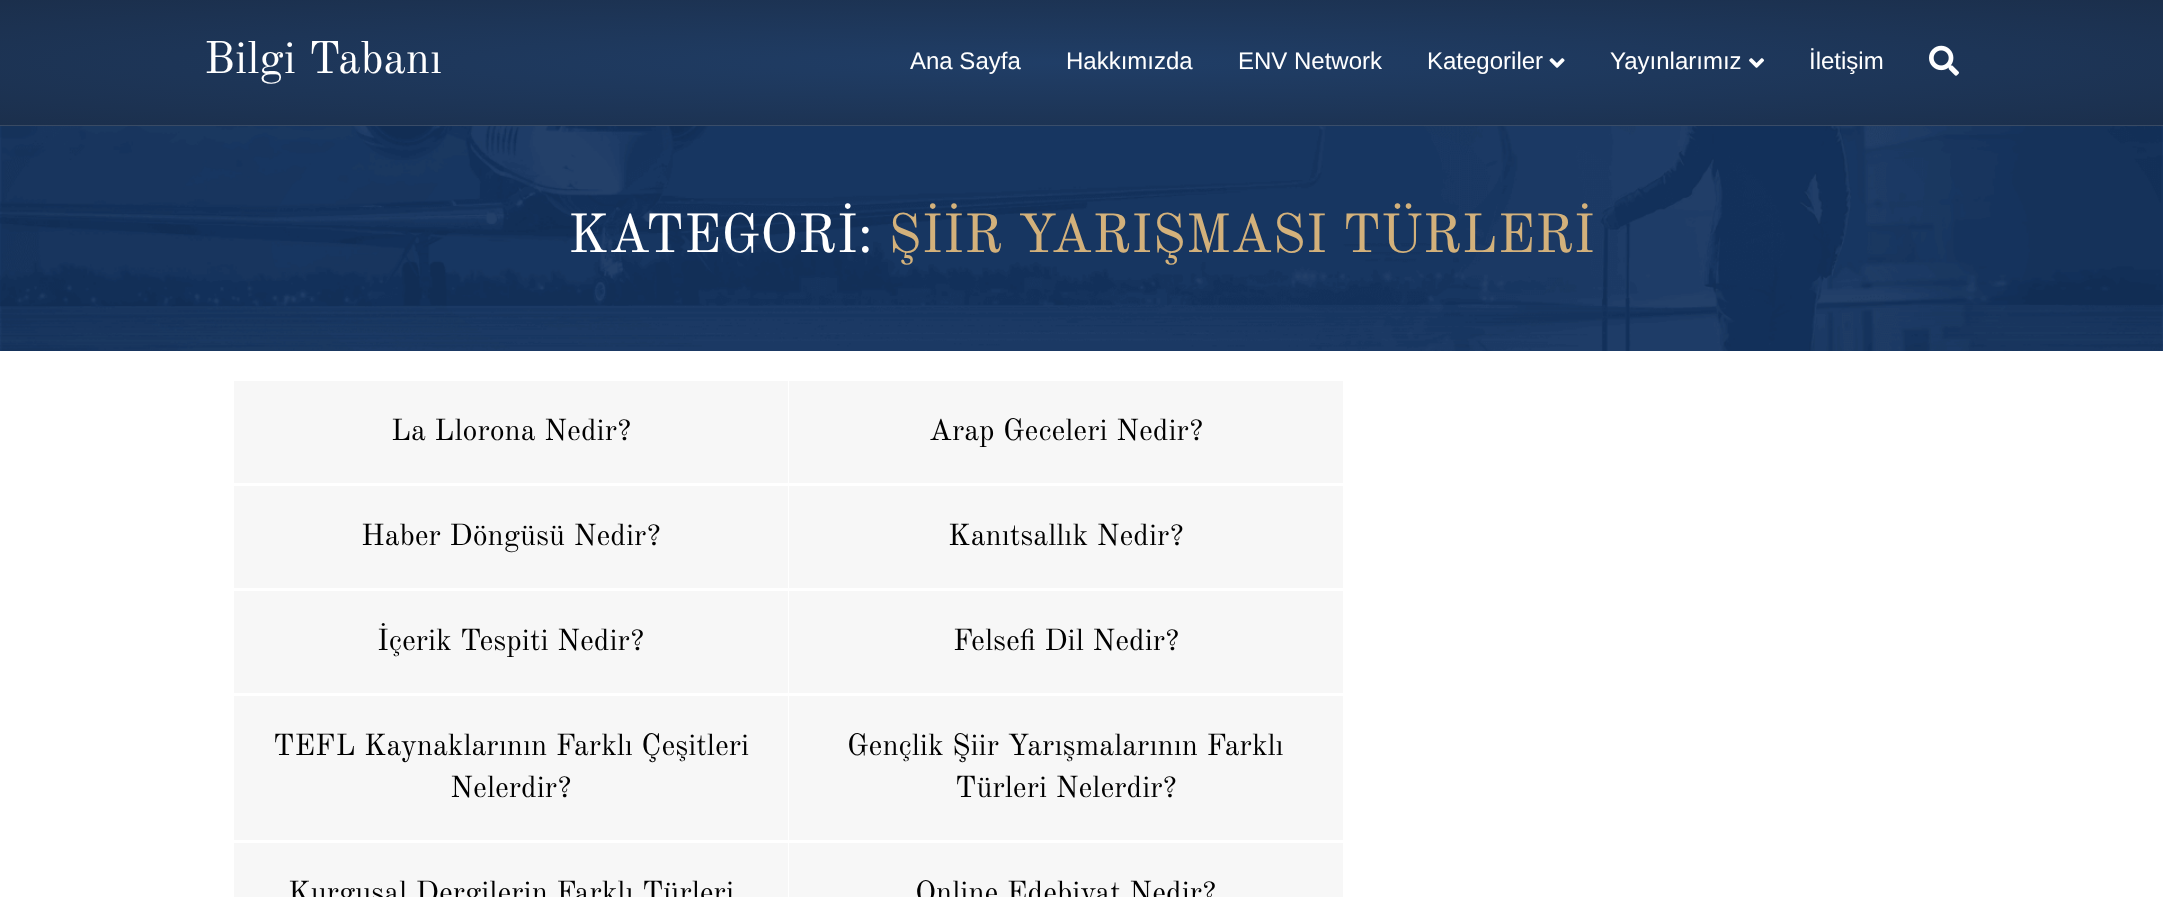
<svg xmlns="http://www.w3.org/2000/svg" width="2163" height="897">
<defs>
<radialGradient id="g1" gradientUnits="userSpaceOnUse" cx="0" cy="0" r="1" gradientTransform="matrix(1529 0 0 89 1082 63)"><stop offset="0" stop-color="#203e67"/><stop offset="1" stop-color="#1b2f4c"/></radialGradient>
<radialGradient id="g2" gradientUnits="userSpaceOnUse" cx="0" cy="0" r="1" gradientTransform="matrix(1529 0 0 89 1082 63)"><stop offset="0" stop-color="#3d577b"/><stop offset="1" stop-color="#394a63"/></radialGradient>
</defs>
<rect width="100%" height="100%" fill="#fff"/>
<rect width="2163" height="125" fill="url(#g1)"/>
<rect y="125" width="2163" height="1" fill="url(#g2)"/>
<text x="204" y="73" style="font-family:Old Standard TT;font-size:45px;fill:#fff">Bilgi Tabanı</text>
<text x="910" y="69" style="font-family:Liberation Sans;font-size:24px;fill:#fff">Ana Sayfa</text>
<text x="1066" y="69" style="font-family:Liberation Sans;font-size:24px;fill:#fff">Hakkımızda</text>
<text x="1238" y="69" style="font-family:Liberation Sans;font-size:24px;fill:#fff">ENV Network</text>
<text x="1427" y="69" style="font-family:Liberation Sans;font-size:24px;fill:#fff">Kategoriler</text>
<image x="1549" y="58" width="16" height="10" href="media/1.png"/>
<text x="1610" y="69" style="font-family:Liberation Sans;font-size:24px;fill:#fff">Yayınlarımız</text>
<image x="1749" y="58" width="15" height="10" href="media/2.png"/>
<text x="1809" y="69" style="font-family:Liberation Sans;font-size:24px;fill:#fff">İletişim</text>
<image x="1929" y="45" width="30" height="31" href="media/3.png"/>
<image x="0" y="126" width="2163" height="225" href="media/4.png"/>
<text x="568" y="252" style="font-family:Old Standard TT;font-size:54px;fill:#fff">KATEGORİ:</text>
<text x="888" y="252" style="font-family:Old Standard TT;font-size:54px;fill:#d3b17b">ŞİİR YARIŞMASI TÜRLERİ</text>
<rect x="234" y="381" width="554" height="102" fill="#f7f7f7"/>
<text x="391" y="440" style="font-family:Old Standard TT;font-size:30px;fill:#000">La Llorona Nedir?</text>
<rect x="789" y="381" width="554" height="102" fill="#f7f7f7"/>
<text x="929" y="440" style="font-family:Old Standard TT;font-size:30px;fill:#000">Arap Geceleri Nedir?</text>
<rect x="234" y="486" width="554" height="102" fill="#f7f7f7"/>
<text x="361" y="545" style="font-family:Old Standard TT;font-size:30px;fill:#000">Haber Döngüsü Nedir?</text>
<rect x="789" y="486" width="554" height="102" fill="#f7f7f7"/>
<text x="948" y="545" style="font-family:Old Standard TT;font-size:30px;fill:#000">Kanıtsallık Nedir?</text>
<rect x="234" y="591" width="554" height="102" fill="#f7f7f7"/>
<text x="377" y="650" style="font-family:Old Standard TT;font-size:30px;fill:#000">İçerik Tespiti Nedir?</text>
<rect x="789" y="591" width="554" height="102" fill="#f7f7f7"/>
<text x="953" y="650" style="font-family:Old Standard TT;font-size:30px;fill:#000">Felsefi Dil Nedir?</text>
<rect x="234" y="696" width="554" height="144" fill="#f7f7f7"/>
<text x="273" y="755" style="font-family:Old Standard TT;font-size:30px;fill:#000">TEFL Kaynaklarının Farklı Çeşitleri</text>
<text x="450" y="797" style="font-family:Old Standard TT;font-size:30px;fill:#000">Nelerdir?</text>
<rect x="789" y="696" width="554" height="144" fill="#f7f7f7"/>
<text x="847" y="755" style="font-family:Old Standard TT;font-size:30px;fill:#000">Gençlik Şiir Yarışmalarının Farklı</text>
<text x="955" y="797" style="font-family:Old Standard TT;font-size:30px;fill:#000">Türleri Nelerdir?</text>
<rect x="234" y="843" width="554" height="54" fill="#f7f7f7"/>
<text x="288" y="902" style="font-family:Old Standard TT;font-size:30px;fill:#000">Kurgusal Dergilerin Farklı Türleri</text>
<rect x="789" y="843" width="554" height="54" fill="#f7f7f7"/>
<text x="915" y="902" style="font-family:Old Standard TT;font-size:30px;fill:#000">Online Edebiyat Nedir?</text>
</svg>
